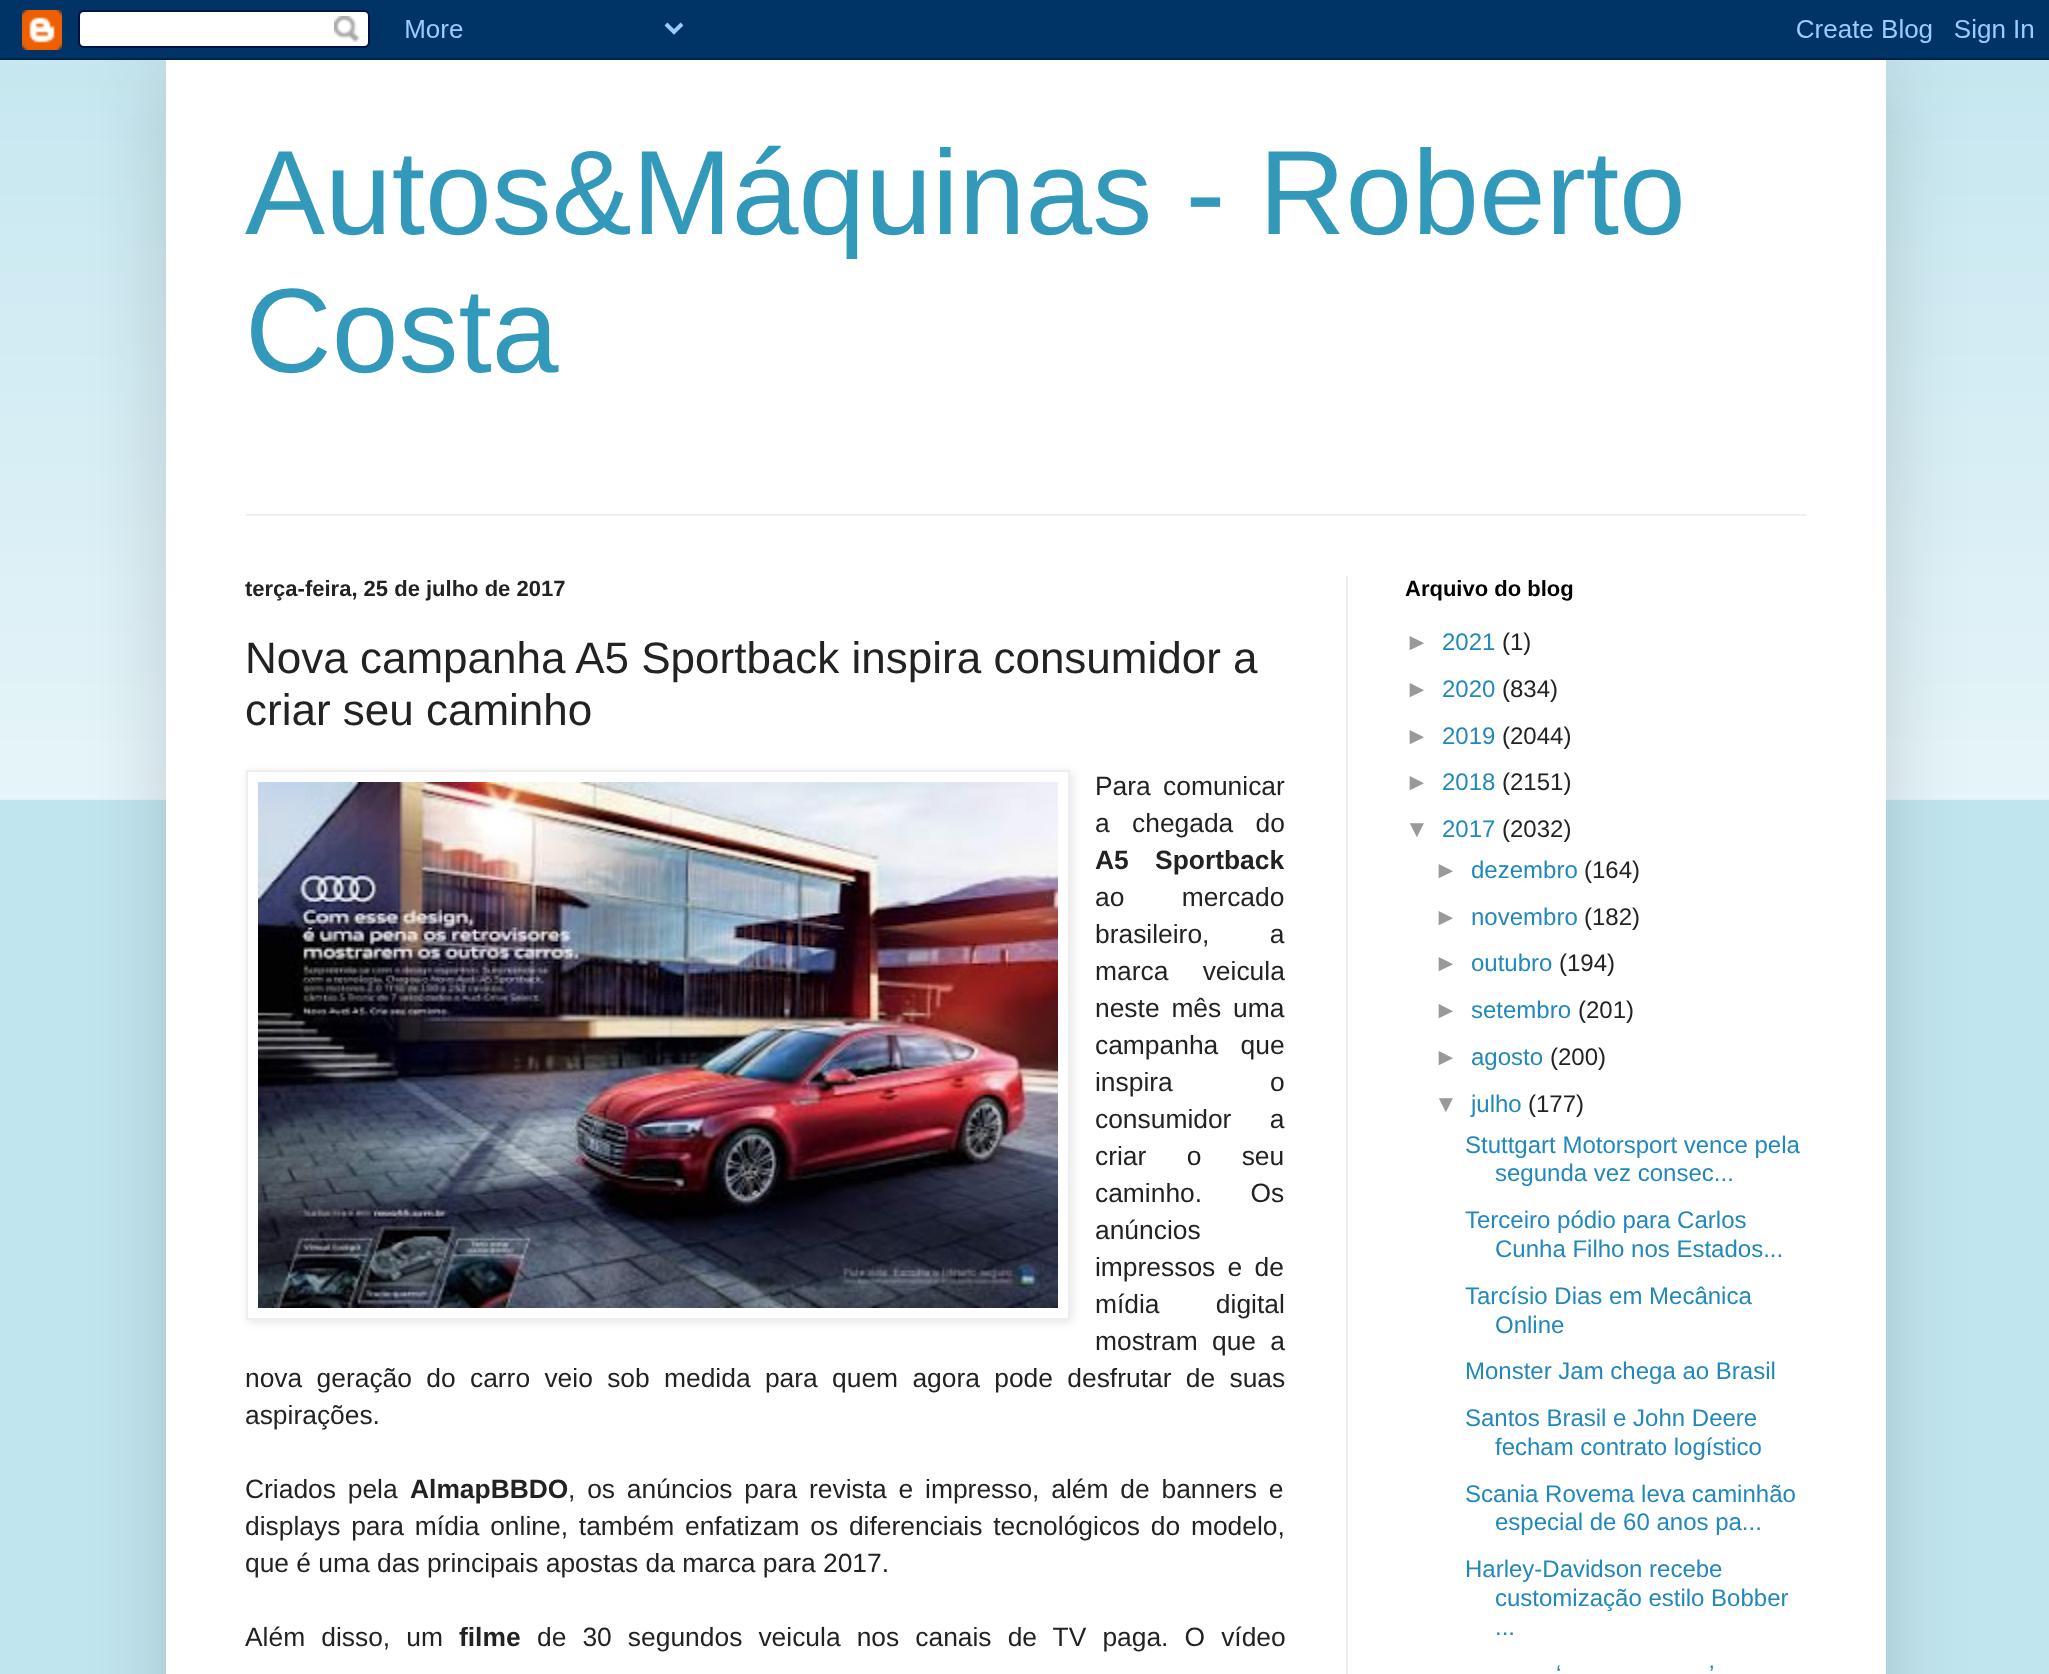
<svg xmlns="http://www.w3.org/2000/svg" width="2049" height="1674">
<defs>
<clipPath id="clip1"><path d="M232 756h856v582h-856zm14 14h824v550h-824z" clip-rule="evenodd"/></clipPath>
</defs>
<rect width="100%" height="100%" fill="#c1e5ef"/>
<image x="0" y="60" width="2049" height="740" href="media/2.png"/>
<rect x="166" y="60" width="1720" height="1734" fill="#00000026" filter="blur(40px)"/>
<image x="0" y="0" width="2049" height="60" href="media/1.png"/>
<rect x="166" y="60" width="1720" height="1614" fill="#fff"/>
<text x="245" y="234" style="font-family:Liberation Sans;font-size:120px;fill:#39b">Autos&amp;Máquinas - Roberto</text>
<text x="245" y="372" style="font-family:Liberation Sans;font-size:120px;fill:#39b">Costa</text>
<rect x="246" y="514" width="1560" height="2" fill="#eee"/>
<rect x="1346" y="576" width="2" height="1098" fill="#eee"/>
<text x="245" y="596" style="font-family:Liberation Sans;font-size:22px;font-weight:bold;fill:#222">terça-feira, 25 de julho de 2017</text>
<text x="245" y="673" style="font-family:Liberation Sans;font-size:44px;fill:#222">Nova campanha A5 Sportback inspira consumidor a</text>
<text x="245" y="725" style="font-family:Liberation Sans;font-size:44px;fill:#222">criar seu caminho</text>
<g clip-path="url(#clip1)">
<rect x="248" y="772" width="824" height="550" fill="#0000001a" filter="blur(5px)"/>
</g>
<rect x="247" y="771" width="822" height="548" fill="none" stroke="#eee" stroke-width="2"/>
<image x="258" y="782" width="800" height="526" href="media/3.png"/>
<text x="1095" y="795" word-spacing="5" style="font-family:Liberation Sans;font-size:26.4px;fill:#222">Para comunicar</text>
<text x="1095" y="832" word-spacing="15" style="font-family:Liberation Sans;font-size:26.4px;fill:#222">a chegada do</text>
<text x="1095" y="869" word-spacing="19" style="font-family:Liberation Sans;font-size:26.4px;font-weight:bold;fill:#222">A5 Sportback</text>
<text x="1095" y="906" word-spacing="50" style="font-family:Liberation Sans;font-size:26.4px;fill:#222">ao mercado</text>
<text x="1095" y="943" word-spacing="53" style="font-family:Liberation Sans;font-size:26.4px;fill:#222">brasileiro, a</text>
<text x="1095" y="980" word-spacing="27" style="font-family:Liberation Sans;font-size:26.4px;fill:#222">marca veicula</text>
<text x="1095" y="1017" word-spacing="4.5" style="font-family:Liberation Sans;font-size:26.4px;fill:#222">neste mês uma</text>
<text x="1095" y="1054" word-spacing="15" style="font-family:Liberation Sans;font-size:26.4px;fill:#222">campanha que</text>
<text x="1095" y="1091" word-spacing="90" style="font-family:Liberation Sans;font-size:26.4px;fill:#222">inspira o</text>
<text x="1095" y="1128" word-spacing="31" style="font-family:Liberation Sans;font-size:26.4px;fill:#222">consumidor a</text>
<text x="1095" y="1165" word-spacing="33" style="font-family:Liberation Sans;font-size:26.4px;fill:#222">criar o seu</text>
<text x="1095" y="1202" word-spacing="41" style="font-family:Liberation Sans;font-size:26.4px;fill:#222">caminho. Os</text>
<text x="1095" y="1239" style="font-family:Liberation Sans;font-size:26.4px;fill:#222">anúncios</text>
<text x="1095" y="1276" word-spacing="5" style="font-family:Liberation Sans;font-size:26.4px;fill:#222">impressos e de</text>
<text x="1095" y="1313" word-spacing="49" style="font-family:Liberation Sans;font-size:26.4px;fill:#222">mídia digital</text>
<text x="1095" y="1350" word-spacing="7" style="font-family:Liberation Sans;font-size:26.4px;fill:#222">mostram que a</text>
<text x="245" y="1387" word-spacing="7" style="font-family:Liberation Sans;font-size:26.4px;fill:#222">nova geração do carro veio sob medida para quem agora pode desfrutar de suas</text>
<text x="245" y="1424" style="font-family:Liberation Sans;font-size:26.4px;fill:#222">aspirações.</text>
<text x="245" y="1498" word-spacing="4.5" style="font-family:Liberation Sans;font-size:26.4px;fill:#222">Criados pela</text>
<text x="410" y="1498" style="font-family:Liberation Sans;font-size:26.4px;font-weight:bold;fill:#222">AlmapBBDO</text>
<text x="568" y="1498" word-spacing="4.5" style="font-family:Liberation Sans;font-size:26.4px;fill:#222">, os anúncios para revista e impresso, além de banners e</text>
<text x="245" y="1535" word-spacing="3.5" style="font-family:Liberation Sans;font-size:26.4px;fill:#222">displays para mídia online, também enfatizam os diferenciais tecnológicos do modelo,</text>
<text x="245" y="1572" style="font-family:Liberation Sans;font-size:26.4px;fill:#222">que é uma das principais apostas da marca para 2017.</text>
<text x="245" y="1646" word-spacing="8.75" style="font-family:Liberation Sans;font-size:26.4px;fill:#222">Além disso, um</text>
<text x="459" y="1646" style="font-family:Liberation Sans;font-size:26.4px;font-weight:bold;fill:#222">filme</text>
<text x="537" y="1646" word-spacing="8.75" style="font-family:Liberation Sans;font-size:26.4px;fill:#222">de 30 segundos veicula nos canais de TV paga. O vídeo</text>
<text x="1405" y="596" style="font-family:Liberation Sans;font-size:22px;font-weight:bold;fill:#000">Arquivo do blog</text>
<text x="1405" y="650" style="font-family:Liberation Sans;font-size:24px;fill:#999">►</text>
<text x="1442" y="650" style="font-family:Liberation Sans;font-size:24px;fill:#28b">2021</text>
<text x="1502" y="650" style="font-family:Liberation Sans;font-size:24px;fill:#222">(1)</text>
<text x="1405" y="697" style="font-family:Liberation Sans;font-size:24px;fill:#999">►</text>
<text x="1442" y="697" style="font-family:Liberation Sans;font-size:24px;fill:#28b">2020</text>
<text x="1502" y="697" style="font-family:Liberation Sans;font-size:24px;fill:#222">(834)</text>
<text x="1405" y="744" style="font-family:Liberation Sans;font-size:24px;fill:#999">►</text>
<text x="1442" y="744" style="font-family:Liberation Sans;font-size:24px;fill:#28b">2019</text>
<text x="1502" y="744" style="font-family:Liberation Sans;font-size:24px;fill:#222">(2044)</text>
<text x="1405" y="790" style="font-family:Liberation Sans;font-size:24px;fill:#999">►</text>
<text x="1442" y="790" style="font-family:Liberation Sans;font-size:24px;fill:#28b">2018</text>
<text x="1502" y="790" style="font-family:Liberation Sans;font-size:24px;fill:#222">(2151)</text>
<text x="1405" y="837" style="font-family:Liberation Sans;font-size:24px;fill:#999">▼</text>
<text x="1442" y="837" style="font-family:Liberation Sans;font-size:24px;fill:#28b">2017</text>
<text x="1502" y="837" style="font-family:Liberation Sans;font-size:24px;fill:#222">(2032)</text>
<text x="1434" y="878" style="font-family:Liberation Sans;font-size:24px;fill:#999">►</text>
<text x="1471" y="878" style="font-family:Liberation Sans;font-size:24px;fill:#28b">dezembro</text>
<text x="1584" y="878" style="font-family:Liberation Sans;font-size:24px;fill:#222">(164)</text>
<text x="1434" y="925" style="font-family:Liberation Sans;font-size:24px;fill:#999">►</text>
<text x="1471" y="925" style="font-family:Liberation Sans;font-size:24px;fill:#28b">novembro</text>
<text x="1584" y="925" style="font-family:Liberation Sans;font-size:24px;fill:#222">(182)</text>
<text x="1434" y="971" style="font-family:Liberation Sans;font-size:24px;fill:#999">►</text>
<text x="1471" y="971" style="font-family:Liberation Sans;font-size:24px;fill:#28b">outubro</text>
<text x="1559" y="971" style="font-family:Liberation Sans;font-size:24px;fill:#222">(194)</text>
<text x="1434" y="1018" style="font-family:Liberation Sans;font-size:24px;fill:#999">►</text>
<text x="1471" y="1018" style="font-family:Liberation Sans;font-size:24px;fill:#28b">setembro</text>
<text x="1578" y="1018" style="font-family:Liberation Sans;font-size:24px;fill:#222">(201)</text>
<text x="1434" y="1065" style="font-family:Liberation Sans;font-size:24px;fill:#999">►</text>
<text x="1471" y="1065" style="font-family:Liberation Sans;font-size:24px;fill:#28b">agosto</text>
<text x="1550" y="1065" style="font-family:Liberation Sans;font-size:24px;fill:#222">(200)</text>
<text x="1434" y="1112" style="font-family:Liberation Sans;font-size:24px;fill:#999">▼</text>
<text x="1471" y="1112" style="font-family:Liberation Sans;font-size:24px;fill:#28b">julho</text>
<text x="1528" y="1112" style="font-family:Liberation Sans;font-size:24px;fill:#222">(177)</text>
<text x="1465" y="1153" style="font-family:Liberation Sans;font-size:24px;fill:#28b">Stuttgart Motorsport vence pela</text>
<text x="1495" y="1181" style="font-family:Liberation Sans;font-size:24px;fill:#28b">segunda vez consec...</text>
<text x="1465" y="1228" style="font-family:Liberation Sans;font-size:24px;fill:#28b">Terceiro pódio para Carlos</text>
<text x="1495" y="1257" style="font-family:Liberation Sans;font-size:24px;fill:#28b">Cunha Filho nos Estados...</text>
<text x="1465" y="1304" style="font-family:Liberation Sans;font-size:24px;fill:#28b">Tarcísio Dias em Mecânica</text>
<text x="1495" y="1333" style="font-family:Liberation Sans;font-size:24px;fill:#28b">Online</text>
<text x="1465" y="1379" style="font-family:Liberation Sans;font-size:24px;fill:#28b">Monster Jam chega ao Brasil</text>
<text x="1465" y="1426" style="font-family:Liberation Sans;font-size:24px;fill:#28b">Santos Brasil e John Deere</text>
<text x="1495" y="1455" style="font-family:Liberation Sans;font-size:24px;fill:#28b">fecham contrato logístico</text>
<text x="1465" y="1502" style="font-family:Liberation Sans;font-size:24px;fill:#28b">Scania Rovema leva caminhão</text>
<text x="1495" y="1530" style="font-family:Liberation Sans;font-size:24px;fill:#28b">especial de 60 anos pa...</text>
<text x="1465" y="1577" style="font-family:Liberation Sans;font-size:24px;fill:#28b">Harley-Davidson recebe</text>
<text x="1495" y="1606" style="font-family:Liberation Sans;font-size:24px;fill:#28b">customização estilo Bobber</text>
<text x="1495" y="1635" style="font-family:Liberation Sans;font-size:24px;fill:#28b">...</text>
<text x="1556" y="1682" style="font-family:Liberation Sans;font-size:24px;fill:#28b">‘</text>
<text x="1709" y="1682" style="font-family:Liberation Sans;font-size:24px;fill:#28b">’</text>
</svg>
